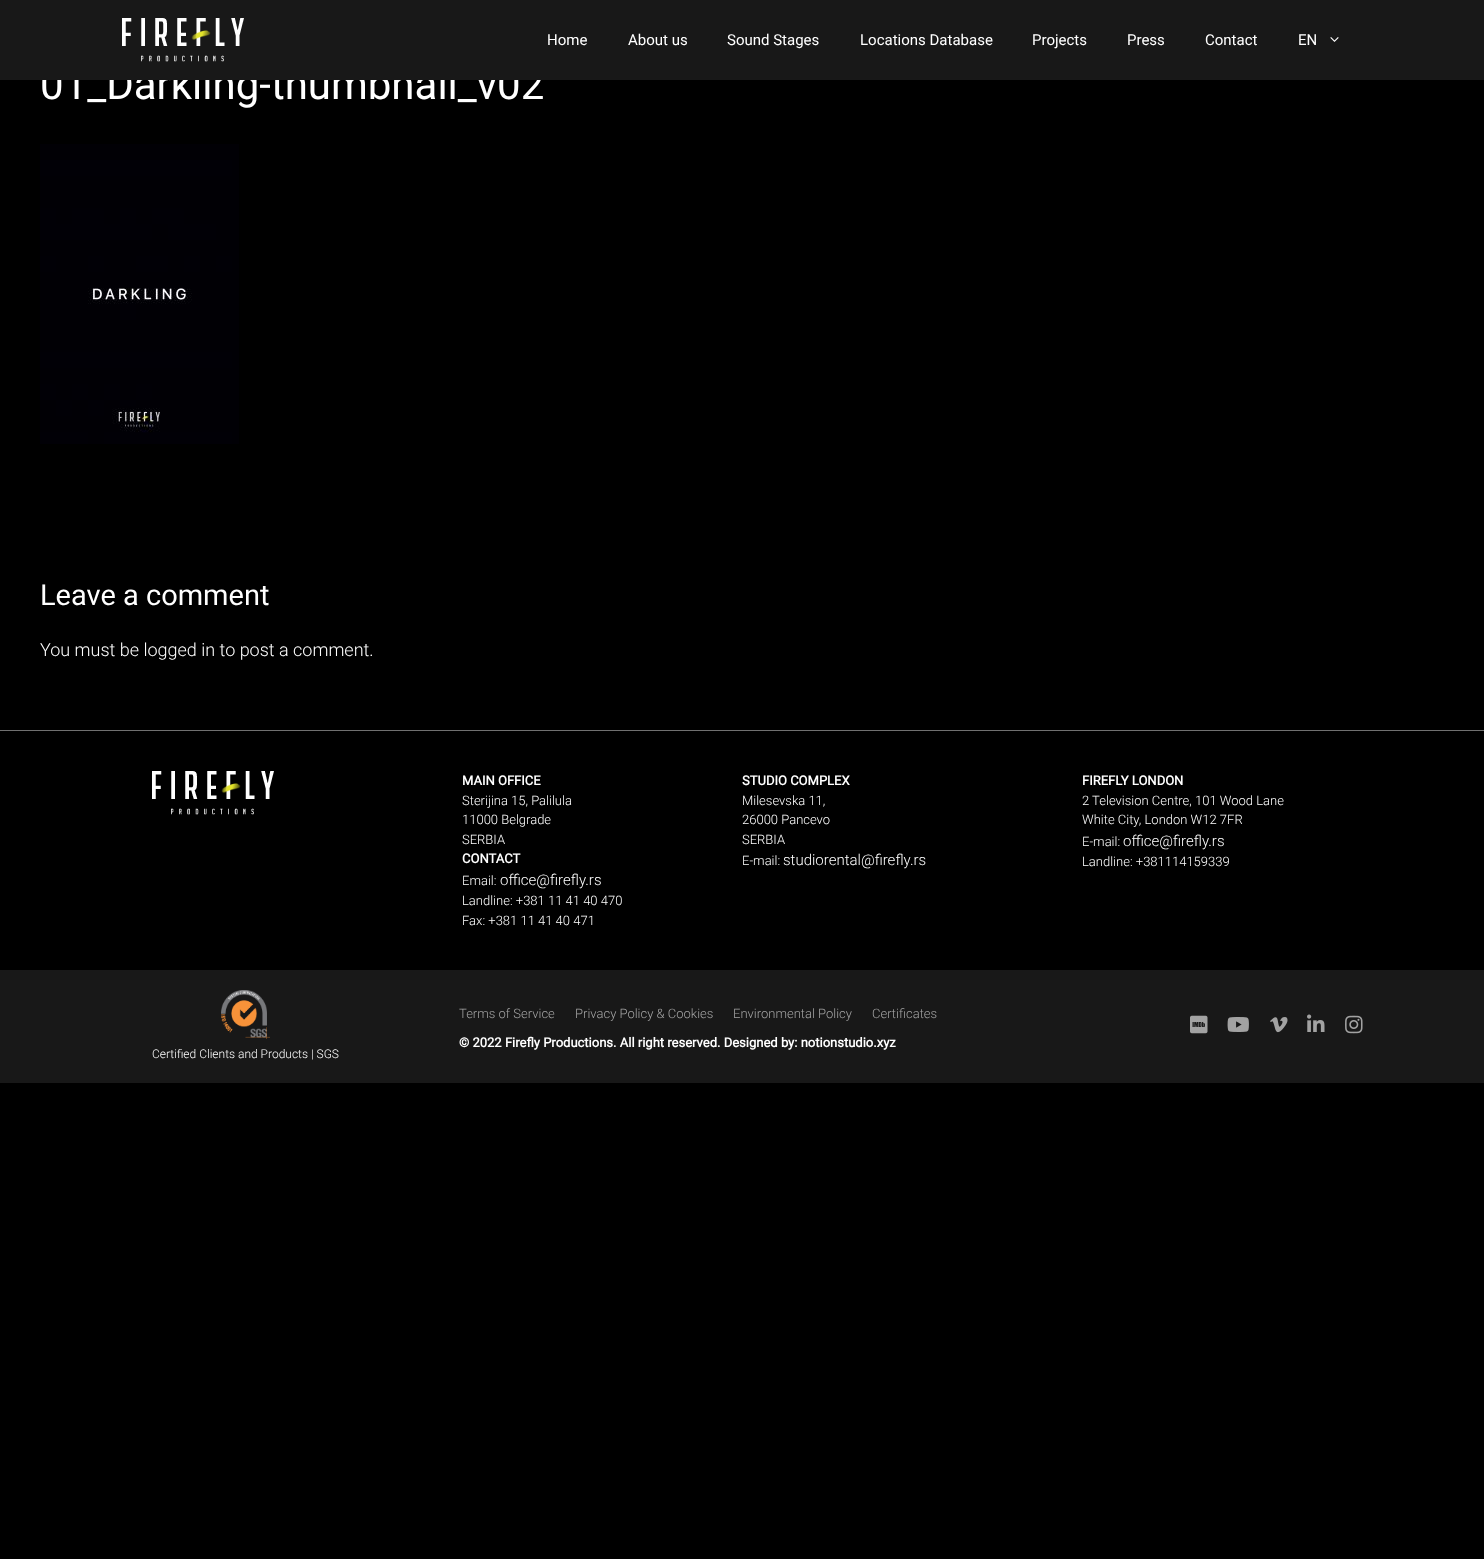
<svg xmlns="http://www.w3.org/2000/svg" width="1484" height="1559">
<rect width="100%" height="100%" fill="#000"/>
<rect width="1484" height="80" fill="#00000073" filter="blur(4px)"/>
<text x="40" y="99" style="font-family:Roboto;font-size:42px;fill:#fff">01_Darkling-thumbnail_v02</text>
<rect width="1484" height="80" fill="#181818"/>
<image x="122" y="18" width="122" height="44" href="media/1.png"/>
<text x="547" y="45" style="font-family:Roboto;font-size:15px;fill:#fff">Home</text>
<text x="628" y="45" style="font-family:Roboto;font-size:15px;fill:#fff">About us</text>
<text x="727" y="45" style="font-family:Roboto;font-size:15px;fill:#fff">Sound Stages</text>
<text x="860" y="45" style="font-family:Roboto;font-size:15px;fill:#fff">Locations Database</text>
<text x="1032" y="45" style="font-family:Roboto;font-size:15px;fill:#fff">Projects</text>
<text x="1127" y="45" style="font-family:Roboto;font-size:15px;fill:#fff">Press</text>
<text x="1205" y="45" style="font-family:Roboto;font-size:15px;fill:#fff">Contact</text>
<text x="1298" y="45" style="font-family:Roboto;font-size:15px;fill:#fff">EN</text>
<image x="1330" y="37" width="9" height="5" href="media/2.png"/>
<image x="40" y="144" width="199" height="300" href="media/3.png"/>
<text x="40" y="605" style="font-family:Roboto;font-size:29px;fill:#fff">Leave a comment</text>
<text x="40" y="656" style="font-family:Roboto;font-size:18px;font-weight:300;fill:#fff">You must be logged in to post a comment.</text>
<rect y="730" width="1484" height="1" fill="#707070"/>
<image x="152" y="771" width="122" height="44" href="media/4.png"/>
<text x="462" y="785" style="font-family:Roboto;font-size:13px;font-weight:bold;fill:#fff">MAIN OFFICE</text>
<text x="462" y="805" style="font-family:Roboto;font-size:13px;font-weight:300;fill:#fff">Sterijina 15, Palilula</text>
<text x="462" y="824" style="font-family:Roboto;font-size:13px;font-weight:300;fill:#fff">11000 Belgrade</text>
<text x="462" y="844" style="font-family:Roboto;font-size:13px;font-weight:300;fill:#fff">SERBIA</text>
<text x="462" y="863" style="font-family:Roboto;font-size:13px;font-weight:bold;fill:#fff">CONTACT</text>
<text x="462" y="885" style="font-family:Roboto;font-size:13px;font-weight:300;fill:#fff">Email:</text>
<text x="500" y="885" style="font-family:Roboto;font-size:15px;font-weight:300;fill:#fff">office@firefly.rs</text>
<text x="462" y="905" style="font-family:Roboto;font-size:13px;font-weight:300;fill:#fff">Landline: +381 11 41 40 470</text>
<text x="462" y="925" style="font-family:Roboto;font-size:13px;font-weight:300;fill:#fff">Fax: +381 11 41 40 471</text>
<text x="742" y="785" style="font-family:Roboto;font-size:13px;font-weight:bold;fill:#fff">STUDIO COMPLEX</text>
<text x="742" y="805" style="font-family:Roboto;font-size:13px;font-weight:300;fill:#fff">Milesevska 11,</text>
<text x="742" y="824" style="font-family:Roboto;font-size:13px;font-weight:300;fill:#fff">26000 Pancevo</text>
<text x="742" y="844" style="font-family:Roboto;font-size:13px;font-weight:300;fill:#fff">SERBIA</text>
<text x="742" y="865" style="font-family:Roboto;font-size:13px;font-weight:300;fill:#fff">E-mail:</text>
<text x="783" y="865" style="font-family:Roboto;font-size:15px;font-weight:300;fill:#fff">studiorental@firefly.rs</text>
<text x="1082" y="785" style="font-family:Roboto;font-size:13px;font-weight:bold;fill:#fff">FIREFLY LONDON</text>
<text x="1082" y="805" style="font-family:Roboto;font-size:13px;font-weight:300;fill:#fff">2 Television Centre, 101 Wood Lane</text>
<text x="1082" y="824" style="font-family:Roboto;font-size:13px;font-weight:300;fill:#fff">White City, London W12 7FR</text>
<text x="1082" y="846" style="font-family:Roboto;font-size:13px;font-weight:300;fill:#fff">E-mail:</text>
<text x="1123" y="846" style="font-family:Roboto;font-size:15px;font-weight:300;fill:#fff">office@firefly.rs</text>
<text x="1082" y="866" style="font-family:Roboto;font-size:13px;font-weight:300;fill:#fff">Landline: +381114159339</text>
<rect y="970" width="1484" height="113" fill="#181818"/>
<text x="459" y="1018" style="font-family:Roboto;font-size:13px;font-weight:300;fill:#a3a3a3">Terms of Service</text>
<text x="575" y="1018" style="font-family:Roboto;font-size:13px;font-weight:300;fill:#a3a3a3">Privacy Policy &amp; Cookies</text>
<text x="733" y="1018" style="font-family:Roboto;font-size:13px;font-weight:300;fill:#a3a3a3">Environmental Policy</text>
<text x="872" y="1018" style="font-family:Roboto;font-size:13px;font-weight:300;fill:#a3a3a3">Certificates</text>
<text x="459" y="1047" style="font-family:Roboto;font-size:13px;font-weight:bold;fill:#fff">© 2022 Firefly Productions. All right reserved. Designed by: notionstudio.xyz</text>
<image x="1190" y="1015" width="18" height="19" href="media/5.png"/>
<image x="1227" y="1017" width="22" height="15" href="media/6.png"/>
<image x="1270" y="1017" width="18" height="16" href="media/7.png"/>
<image x="1307" y="1014" width="18" height="18" href="media/8.png"/>
<image x="1345" y="1015" width="18" height="19" href="media/9.png"/>
<image x="221" y="990" width="49" height="49" href="media/10.png"/>
<text x="152" y="1058" style="font-family:Roboto;font-size:12px;font-weight:300;fill:#fff">Certified Clients and Products | SGS</text>
</svg>
